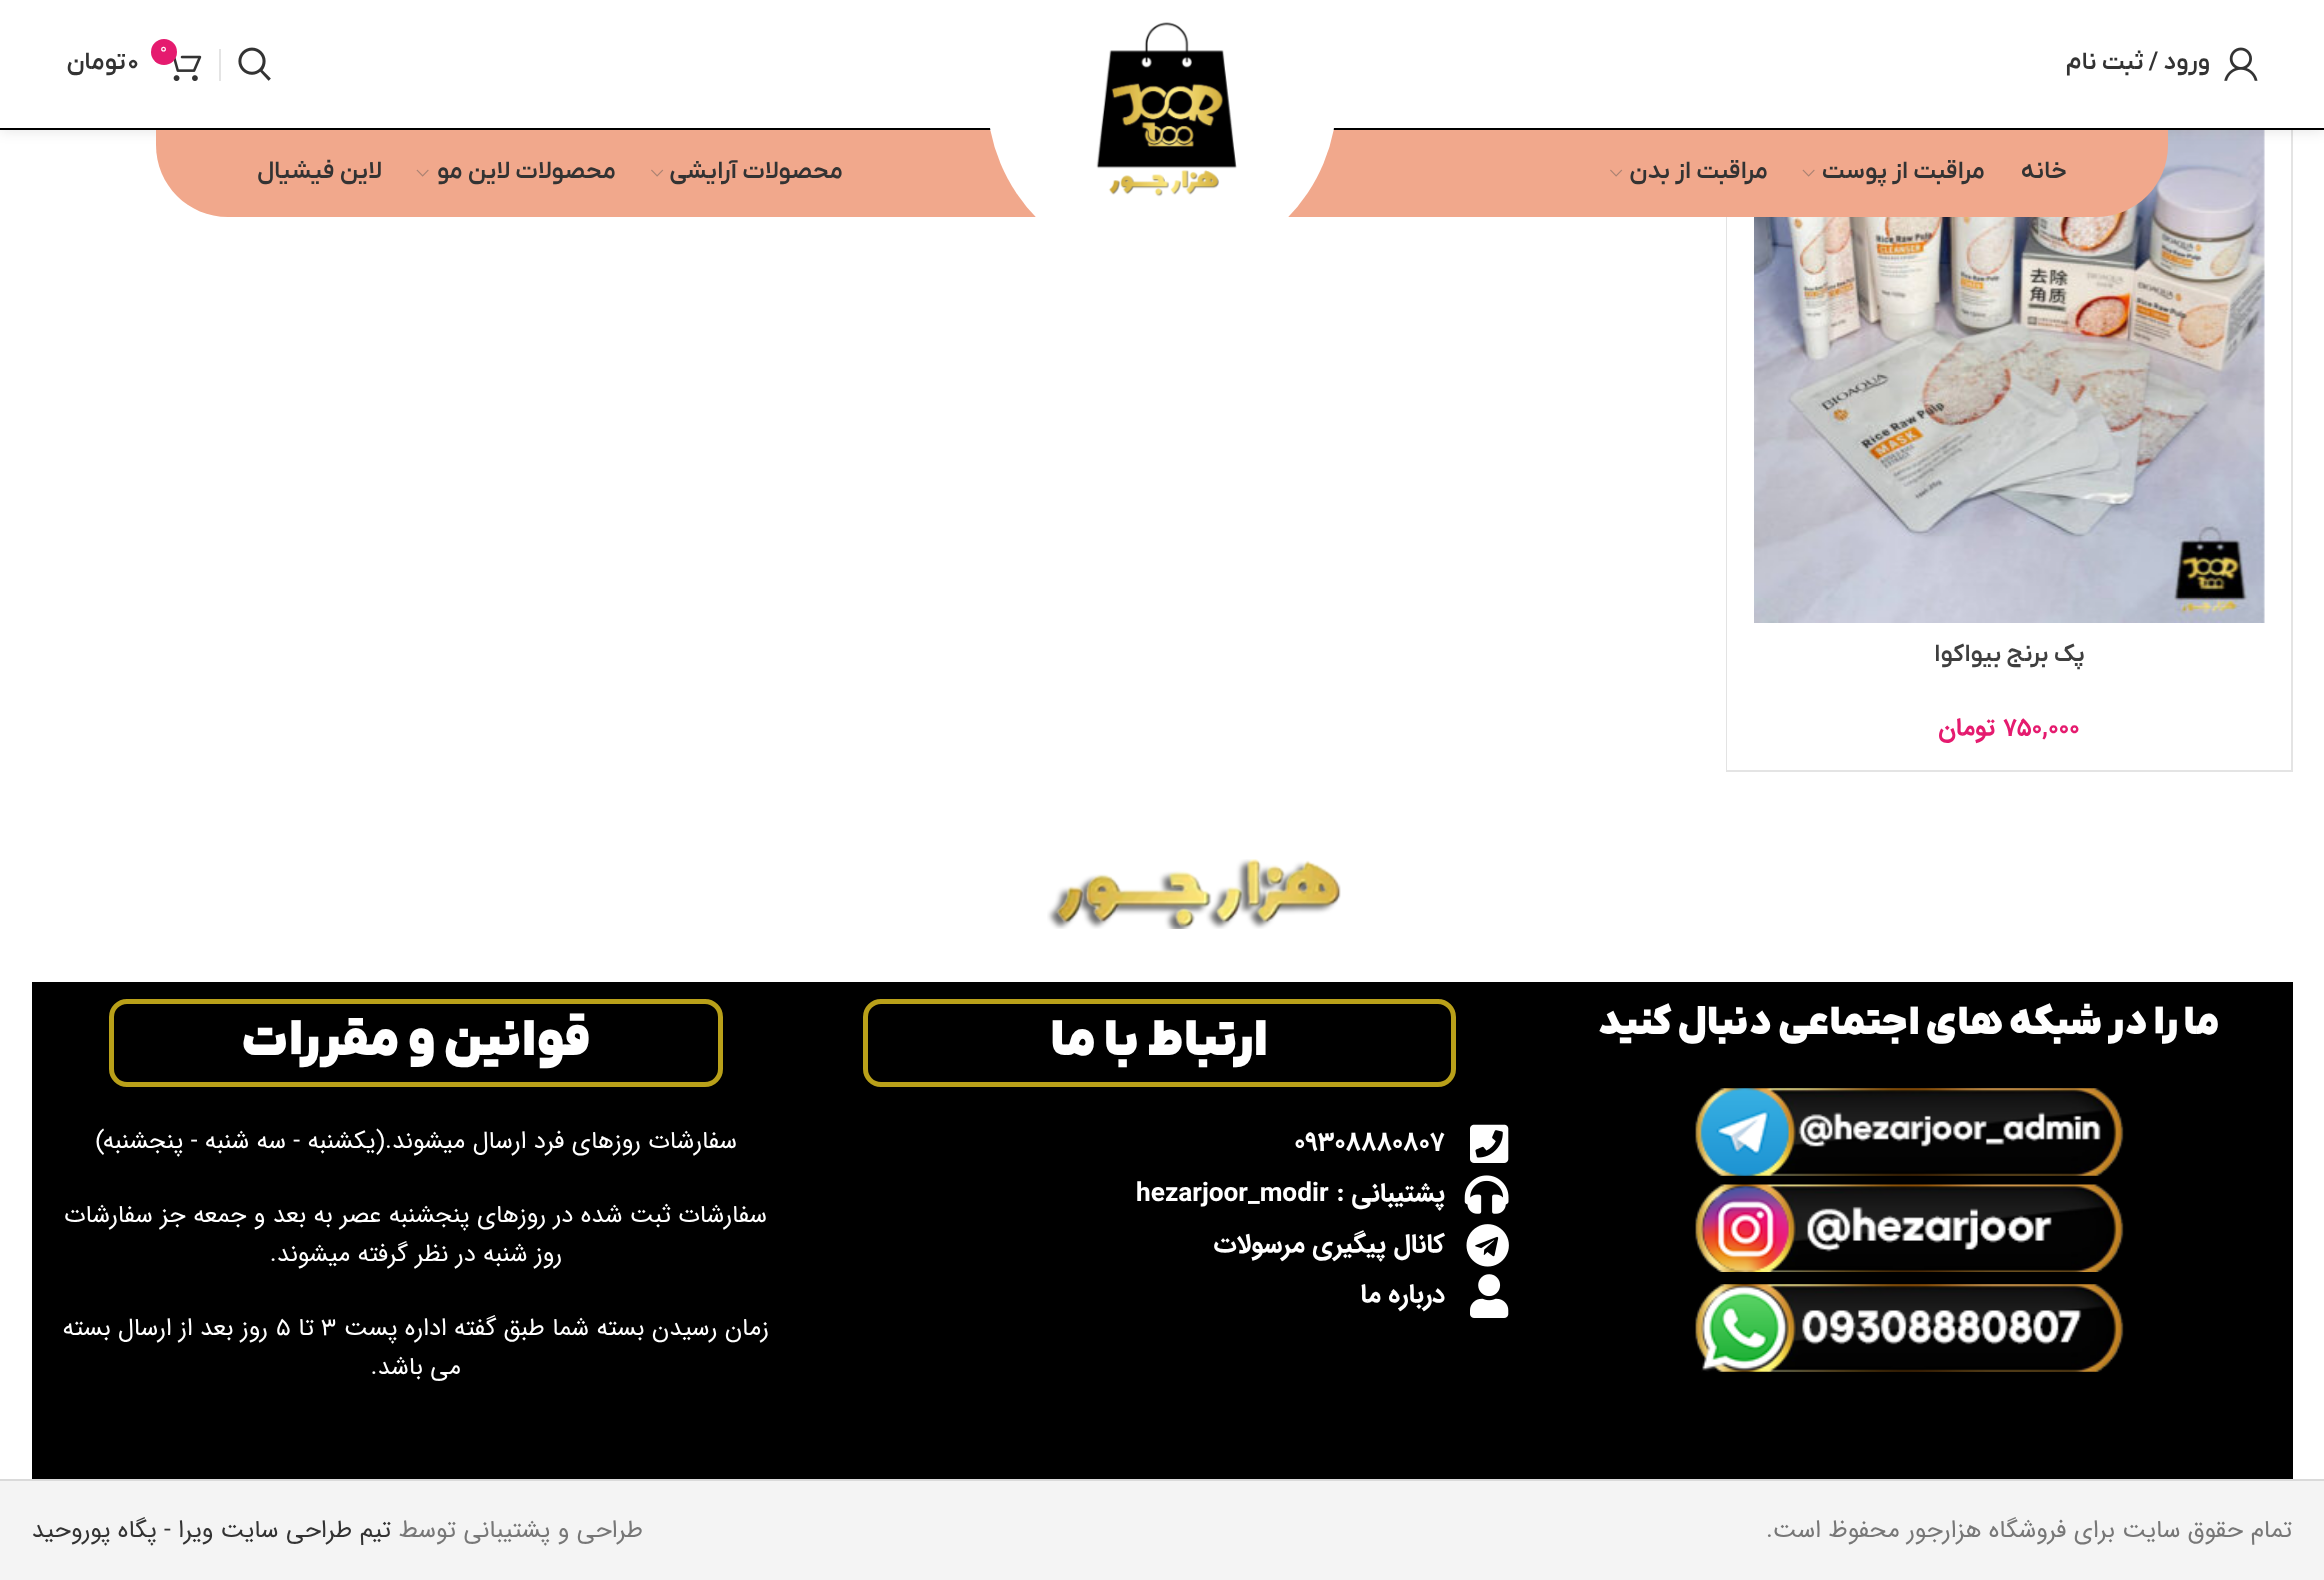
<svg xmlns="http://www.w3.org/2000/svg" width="2324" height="1580">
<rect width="100%" height="100%" fill="#fff"/>
<rect x="2291" y="130" width="2" height="642" fill="#e4e4e4"/>
<path d="M2291 772h-565l1-2h564z" fill="#e4e4e4"/>
<path d="M1726 772v-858l1 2v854z" fill="#0000001c"/>
<image x="1754" y="130" width="511" height="493" href="media/7.png"/>
<rect y="2" width="2324" height="129" fill="#0000001a" filter="blur(7px)"/>
<rect width="2324" height="128" fill="#fff"/>
<rect y="128" width="2324" height="2" fill="#000"/>
<image x="2224" y="47" width="34" height="34" href="media/1.png"/>
<text x="2210" y="69" style="font-family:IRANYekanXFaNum;font-size:24.5px;font-weight:600;direction:rtl;fill:#333">ورود / ثبت نام</text>
<path d="M156 130h2012v15c0 40-32 72-72 72h-1868c-40 0-72-32-72-72z" fill="#f1a88c"/>
<circle cx="1162" cy="96" r="175" fill="#fff"/>
<image x="1096" y="22" width="141" height="175" href="media/2.png"/>
<image x="238" y="47" width="33" height="34" href="media/3.png"/>
<rect x="219" y="49" width="2" height="32" fill="#e4e4e4"/>
<image x="173" y="55" width="29" height="26" href="media/4.png"/>
<circle cx="164" cy="52" r="13" fill="#e51b6f"/>
<text x="160" y="53" style="font-family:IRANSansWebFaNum;font-size:16px;fill:#fff">0</text>
<text x="127" y="69" style="font-family:IRANYekanXFaNum;font-size:24.5px;font-weight:600;fill:#333">0</text>
<text x="126" y="69" style="font-family:IRANYekanXFaNum;font-size:24.5px;font-weight:600;direction:rtl;fill:#333">تومان</text>
<text x="2067" y="178" style="font-family:IRANYekanXFaNum;font-size:24.5px;font-weight:600;direction:rtl;fill:#333">خانه</text>
<text x="1985" y="178" style="font-family:IRANYekanXFaNum;font-size:24.5px;font-weight:600;direction:rtl;fill:#333">مراقبت از پوست</text>
<image x="1802" y="169" width="13" height="8" href="media/5.png"/>
<text x="1768" y="178" style="font-family:IRANYekanXFaNum;font-size:24.5px;font-weight:600;direction:rtl;fill:#333">مراقبت از بدن</text>
<image x="1610" y="169" width="13" height="8" href="media/6.png"/>
<text x="843" y="178" style="font-family:IRANYekanXFaNum;font-size:24.5px;font-weight:600;direction:rtl;fill:#333">محصولات آرایشی</text>
<image x="651" y="169" width="13" height="8" href="media/6.png"/>
<text x="616" y="178" style="font-family:IRANYekanXFaNum;font-size:24.5px;font-weight:600;direction:rtl;fill:#333">محصولات لاین مو</text>
<image x="416" y="169" width="13" height="8" href="media/5.png"/>
<text x="382" y="178" style="font-family:IRANYekanXFaNum;font-size:24.5px;font-weight:600;direction:rtl;fill:#333">لاین فیشیال</text>
<text x="2085" y="661" style="font-family:IRANYekanXFaNum;font-size:24.5px;font-weight:600;direction:rtl;fill:#3f3f3f">پک برنج بیواکوا</text>
<text x="2003" y="735" style="font-family:IRANSansWebFaNum;font-size:24.5px;font-weight:bold;fill:#e51b6f">750,000</text>
<text x="1995" y="735" style="font-family:IRANSansWebFaNum;font-size:24.5px;font-weight:bold;direction:rtl;fill:#e51b6f">تومان</text>
<image x="1047" y="859" width="294" height="70" href="media/8.png"/>
<rect x="32" y="982" width="2261" height="497" fill="#000"/>
<text x="2220" y="1034" style="font-family:IRANYekanXFaNum;font-size:38.5px;font-weight:800;direction:rtl;fill:#fff">ما را در شبکه های اجتماعی دنبال کنید</text>
<image x="1695" y="1088" width="429" height="88" href="media/9.png"/>
<image x="1695" y="1184" width="429" height="88" href="media/10.png"/>
<image x="1695" y="1284" width="429" height="88" href="media/11.png"/>
<rect x="865.5" y="1001.5" width="588" height="83" rx="15.5" fill="none" stroke="#b9a019" stroke-width="5"/>
<text x="1268" y="1055" style="font-family:IRANYekanXFaNum;font-size:49px;font-weight:800;direction:rtl;fill:#fff">ارتباط با ما</text>
<image x="1470" y="1124" width="39" height="39" href="media/12.png"/>
<text x="1294" y="1150" style="font-family:IRANSansWebFaNum;font-size:26.25px;font-weight:bold;fill:#fff">09308880807</text>
<image x="1464" y="1175" width="45" height="39" href="media/13.png"/>
<text x="1445" y="1201" style="font-family:IRANSansWebFaNum;font-size:26.25px;font-weight:bold;direction:rtl;fill:#fff">پشتیبانی :</text>
<text x="1136" y="1201" style="font-family:IRANSansWebFaNum;font-size:26.25px;font-weight:bold;fill:#fff">hezarjoor_modir</text>
<image x="1466" y="1224" width="43" height="43" href="media/14.png"/>
<text x="1445" y="1252" style="font-family:IRANSansWebFaNum;font-size:26.25px;font-weight:bold;direction:rtl;fill:#fff">کانال پیگیری مرسولات</text>
<image x="1470" y="1274" width="39" height="44" href="media/15.png"/>
<text x="1445" y="1302" style="font-family:IRANSansWebFaNum;font-size:26.25px;font-weight:bold;direction:rtl;fill:#fff">درباره ما</text>
<rect x="111.5" y="1001.5" width="609" height="83" rx="15.5" fill="none" stroke="#b9a019" stroke-width="5"/>
<text x="591" y="1055" style="font-family:IRANYekanXFaNum;font-size:49px;font-weight:800;direction:rtl;fill:#fff">قوانین و مقررات</text>
<text x="737" y="1148" style="font-family:IRANSansWebFaNum;font-size:24.5px;direction:rtl;fill:#fff">سفارشات روزهای فرد ارسال میشوند.(یکشنبه - سه شنبه - پنجشنبه)</text>
<text x="767" y="1222" style="font-family:IRANSansWebFaNum;font-size:24.5px;direction:rtl;fill:#fff">سفارشات ثبت شده در روزهای پنجشنبه عصر به بعد و جمعه جز سفارشات</text>
<text x="562" y="1261" style="font-family:IRANSansWebFaNum;font-size:24.5px;direction:rtl;fill:#fff">روز شنبه در نظر گرفته میشوند.</text>
<text x="769" y="1335" style="font-family:IRANSansWebFaNum;font-size:24.5px;direction:rtl;fill:#fff">زمان رسیدن بسته شما طبق گفته اداره پست</text>
<text x="321" y="1335" style="font-family:IRANSansWebFaNum;font-size:24.5px;fill:#fff">3</text>
<text x="314" y="1335" style="font-family:IRANSansWebFaNum;font-size:24.5px;direction:rtl;fill:#fff">تا</text>
<text x="276" y="1335" style="font-family:IRANSansWebFaNum;font-size:24.5px;fill:#fff">5</text>
<text x="268" y="1335" style="font-family:IRANSansWebFaNum;font-size:24.5px;direction:rtl;fill:#fff">روز بعد از ارسال بسته</text>
<text x="461" y="1374" style="font-family:IRANSansWebFaNum;font-size:24.5px;direction:rtl;fill:#fff">می باشد.</text>
<rect y="1481" width="2324" height="99" fill="#f4f4f4"/>
<rect y="1479" width="2324" height="2" fill="#dadada"/>
<text x="2292" y="1537" style="font-family:IRANSansWebFaNum;font-size:24.5px;direction:rtl;fill:#777">تمام حقوق سایت برای فروشگاه هزارجور محفوظ است.</text>
<text x="643" y="1537" style="font-family:IRANSansWebFaNum;font-size:24.5px;direction:rtl;fill:#777">طراحی و پشتیبانی توسط</text>
<text x="391" y="1537" style="font-family:IRANSansWebFaNum;font-size:24.5px;direction:rtl;fill:#333">تیم طراحی سایت ویرا - پگاه پوروحید</text>
</svg>
